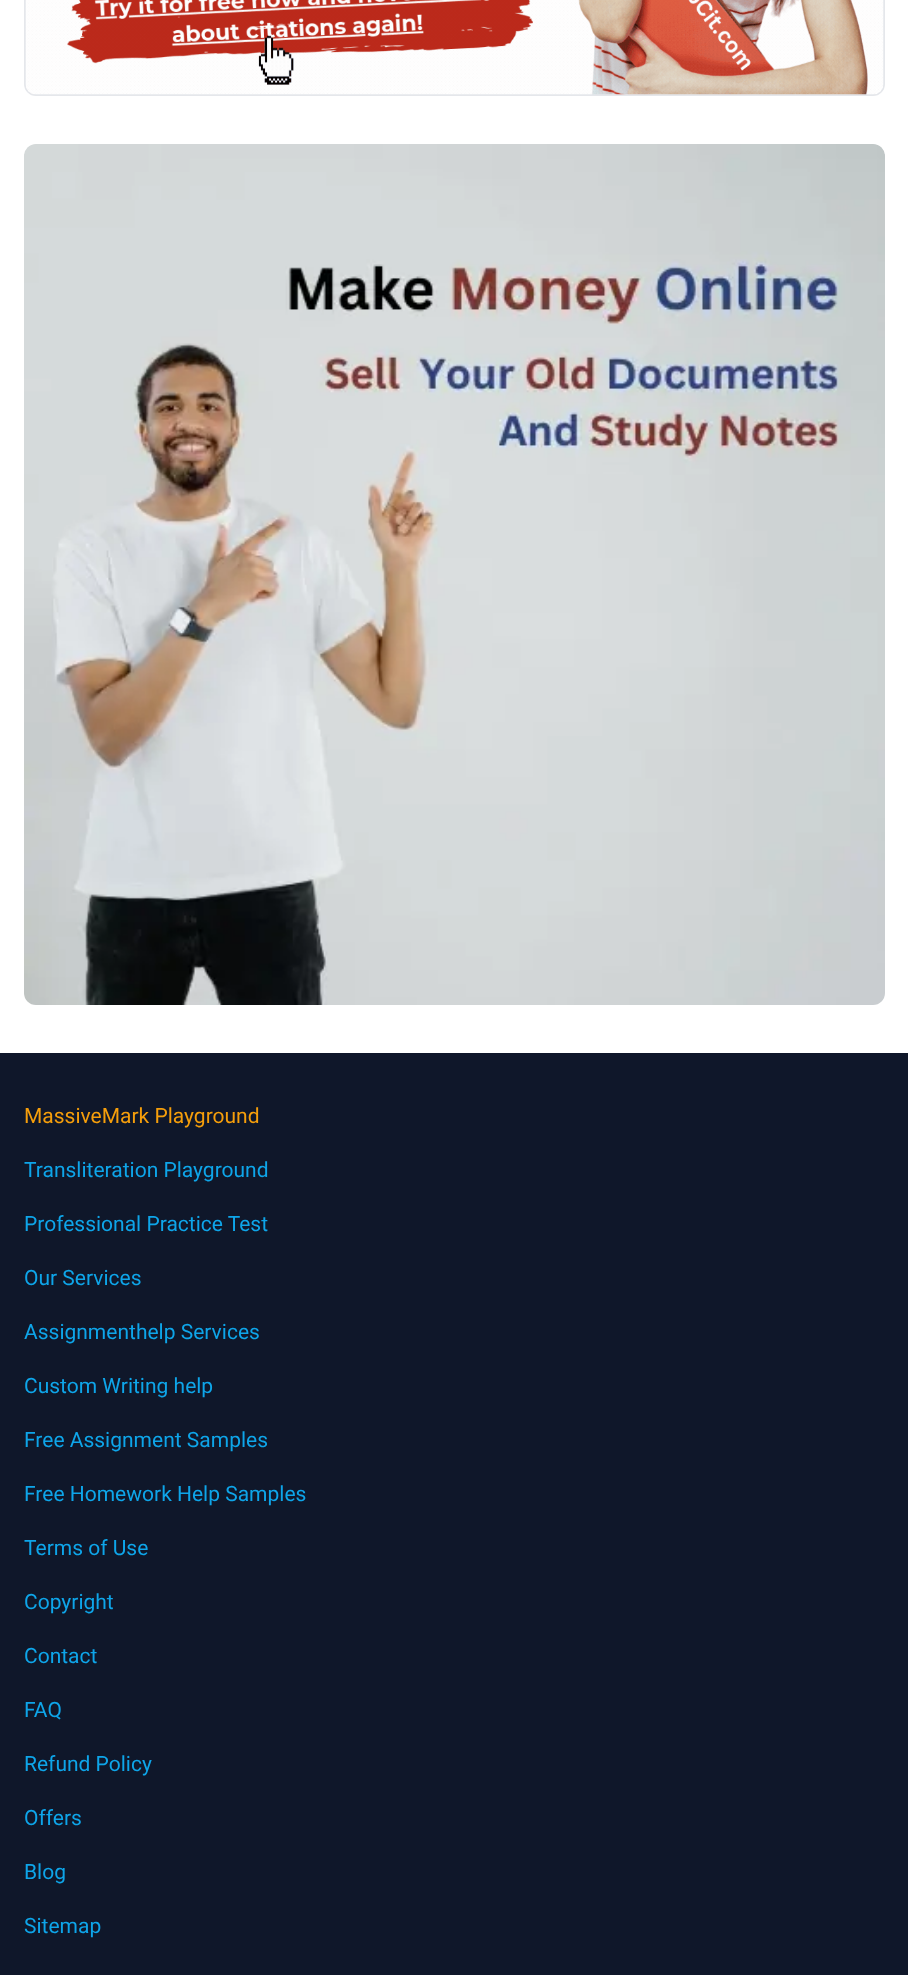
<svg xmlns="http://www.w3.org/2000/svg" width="908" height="1975">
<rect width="100%" height="100%" fill="#fff"/>
<rect x="25" y="-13" width="859" height="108" rx="11" fill="none" stroke="#e5e7eb" stroke-width="2"/>
<image x="25" y="0" width="859" height="95" href="media/1.png"/>
<image x="24" y="144" width="861" height="861" href="media/2.png"/>
<rect y="1053" width="908" height="922" fill="#0f172a"/>
<text x="24" y="1123" style="font-family:Roboto;font-size:21px;fill:#f59e0b">MassiveMark Playground</text>
<text x="24" y="1177" style="font-family:Roboto;font-size:21px;fill:#0ea5e9">Transliteration Playground</text>
<text x="24" y="1231" style="font-family:Roboto;font-size:21px;fill:#0ea5e9">Professional Practice Test</text>
<text x="24" y="1285" style="font-family:Roboto;font-size:21px;fill:#0ea5e9">Our Services</text>
<text x="24" y="1339" style="font-family:Roboto;font-size:21px;fill:#0ea5e9">Assignmenthelp Services</text>
<text x="24" y="1393" style="font-family:Roboto;font-size:21px;fill:#0ea5e9">Custom Writing help</text>
<text x="24" y="1447" style="font-family:Roboto;font-size:21px;fill:#0ea5e9">Free Assignment Samples</text>
<text x="24" y="1501" style="font-family:Roboto;font-size:21px;fill:#0ea5e9">Free Homework Help Samples</text>
<text x="24" y="1555" style="font-family:Roboto;font-size:21px;fill:#0ea5e9">Terms of Use</text>
<text x="24" y="1609" style="font-family:Roboto;font-size:21px;fill:#0ea5e9">Copyright</text>
<text x="24" y="1663" style="font-family:Roboto;font-size:21px;fill:#0ea5e9">Contact</text>
<text x="24" y="1717" style="font-family:Roboto;font-size:21px;fill:#0ea5e9">FAQ</text>
<text x="24" y="1771" style="font-family:Roboto;font-size:21px;fill:#0ea5e9">Refund Policy</text>
<text x="24" y="1825" style="font-family:Roboto;font-size:21px;fill:#0ea5e9">Offers</text>
<text x="24" y="1879" style="font-family:Roboto;font-size:21px;fill:#0ea5e9">Blog</text>
<text x="24" y="1933" style="font-family:Roboto;font-size:21px;fill:#0ea5e9">Sitemap</text>
</svg>
